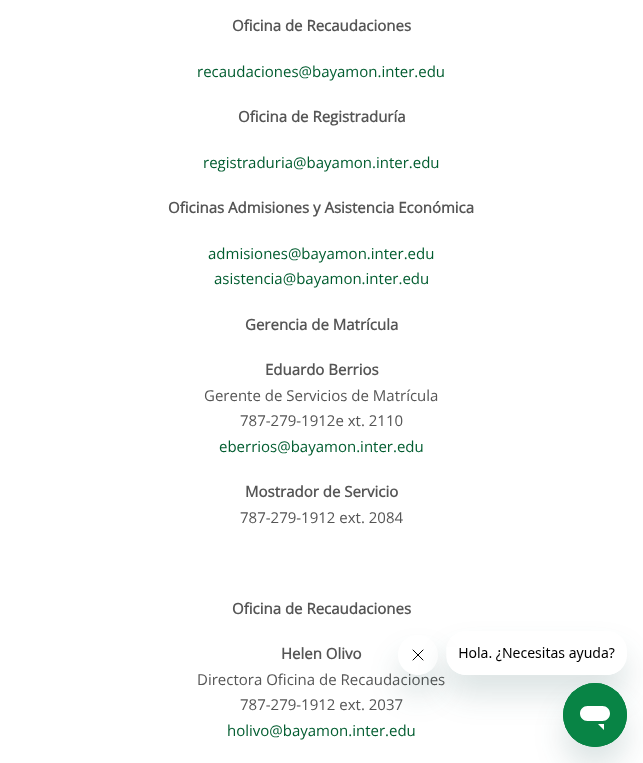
<svg xmlns="http://www.w3.org/2000/svg" width="643" height="763">
<defs>
<clipPath id="clip1"><path d="M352 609h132v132h-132zm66 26c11 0 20 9 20 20c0 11-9 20-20 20c-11 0-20-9-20-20c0-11 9-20 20-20z" clip-rule="evenodd"/></clipPath>
<clipPath id="clip2"><path d="M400 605h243v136h-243zm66 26h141c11 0 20 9 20 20v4c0 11-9 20-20 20h-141c-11 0-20-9-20-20v-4c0-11 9-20 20-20z" clip-rule="evenodd"/></clipPath>
</defs>
<rect width="100%" height="100%" fill="#fff"/>
<text x="232" y="31" style="font-family:Open Sans;font-size:15px;font-weight:bold;fill:#555">Oficina de Recaudaciones</text>
<text x="197" y="77" style="font-family:Open Sans;font-size:15px;fill:#005c2f">recaudaciones@bayamon.inter.edu</text>
<text x="238" y="122" style="font-family:Open Sans;font-size:15px;font-weight:bold;fill:#555">Oficina de Registraduría</text>
<text x="203" y="168" style="font-family:Open Sans;font-size:15px;fill:#005c2f">registraduria@bayamon.inter.edu</text>
<text x="168" y="213" style="font-family:Open Sans;font-size:15px;font-weight:bold;fill:#555">Oficinas Admisiones y Asistencia Económica</text>
<text x="208" y="259" style="font-family:Open Sans;font-size:15px;fill:#005c2f">admisiones@bayamon.inter.edu</text>
<text x="214" y="284" style="font-family:Open Sans;font-size:15px;fill:#005c2f">asistencia@bayamon.inter.edu</text>
<text x="245" y="330" style="font-family:Open Sans;font-size:15px;font-weight:bold;fill:#555">Gerencia de Matrícula</text>
<text x="265" y="375" style="font-family:Open Sans;font-size:15px;font-weight:bold;fill:#555">Eduardo Berrios</text>
<text x="204" y="401" style="font-family:Open Sans;font-size:15px;fill:#555">Gerente de Servicios de Matrícula</text>
<text x="240" y="426" style="font-family:Open Sans;font-size:15px;fill:#555">787-279-1912e xt. 2110</text>
<text x="219" y="452" style="font-family:Open Sans;font-size:15px;fill:#005c2f">eberrios@bayamon.inter.edu</text>
<text x="245" y="497" style="font-family:Open Sans;font-size:15px;font-weight:bold;fill:#555">Mostrador de Servicio</text>
<text x="240" y="523" style="font-family:Open Sans;font-size:15px;fill:#555">787-279-1912 ext. 2084</text>
<text x="232" y="614" style="font-family:Open Sans;font-size:15px;font-weight:bold;fill:#555">Oficina de Recaudaciones</text>
<text x="281" y="659" style="font-family:Open Sans;font-size:15px;font-weight:bold;fill:#555">Helen Olivo</text>
<text x="197" y="685" style="font-family:Open Sans;font-size:15px;fill:#555">Directora Oficina de Recaudaciones</text>
<text x="240" y="710" style="font-family:Open Sans;font-size:15px;fill:#555">787-279-1912 ext. 2037</text>
<text x="227" y="736" style="font-family:Open Sans;font-size:15px;fill:#005c2f">holivo@bayamon.inter.edu</text>
<g clip-path="url(#clip1)">
<rect x="398" y="655" width="40" height="40" rx="20" fill="#17494d26" filter="blur(15px)"/>
</g>
<image x="412" y="649" width="12" height="12" href="media/2.png"/>
<g clip-path="url(#clip2)">
<rect x="446" y="651" width="181" height="44" rx="20" fill="#17494d26" filter="blur(15px)"/>
</g>
<image x="447" y="647" width="174" height="28" href="media/1.png"/>
<rect x="563" y="703" width="64" height="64" rx="32" fill="#17494d26" filter="blur(15px)"/>
<image x="563" y="683" width="64" height="64" href="media/3.png"/>
</svg>
